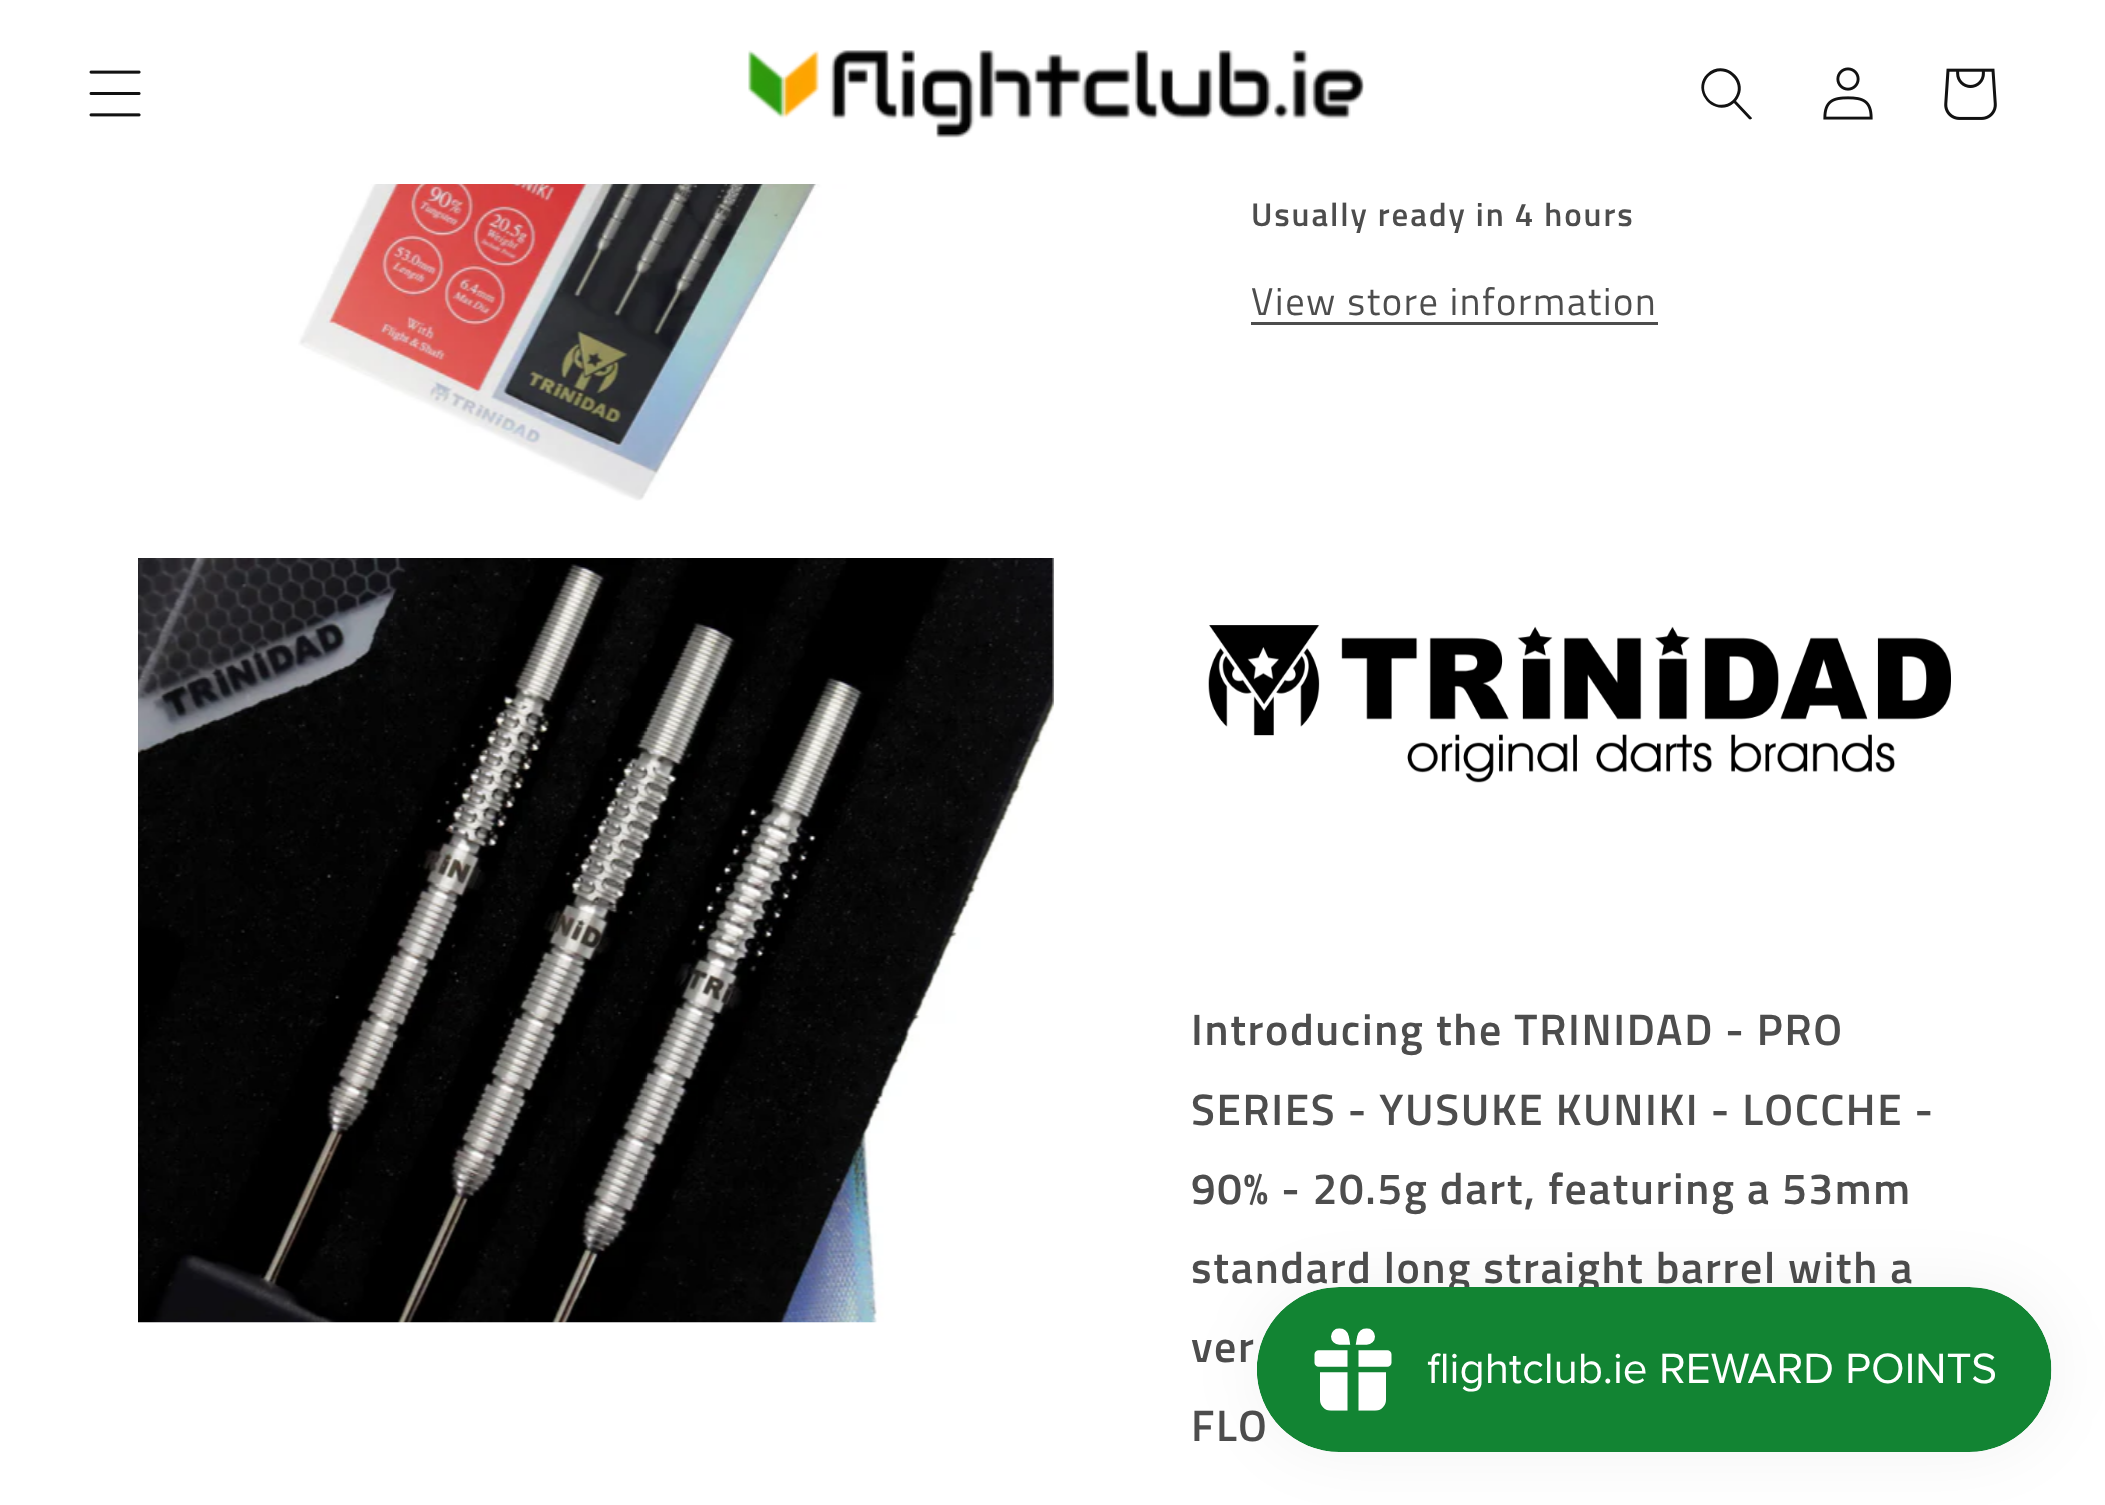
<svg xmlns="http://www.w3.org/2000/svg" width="2105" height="1505">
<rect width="100%" height="100%" fill="#fff"/>
<image x="89" y="70" width="52" height="47" href="media/1.png"/>
<image x="748" y="50" width="616" height="88" href="media/2.png"/>
<path d="M1733 100c-16 15-39-8-24-24c16-15 39 8 24 24m1 3c-19 16-44-12-27-29c18-17 45 8 29 27l16 17c0 1-2 2-3 1z" fill="#121212" fill-rule="evenodd"/>
<image x="1823" y="67" width="50" height="53" href="media/3.png"/>
<image x="1944" y="68" width="53" height="52" href="media/4.png"/>
<image x="298" y="184" width="595" height="317" href="media/5.png"/>
<image x="138" y="558" width="916" height="765" href="media/6.png"/>
<text x="1251" y="226" style="font-family:Titillium Web;font-size:33px;font-weight:600;letter-spacing:1.9px;fill:#4d4d4d">Usually ready in 4 hours</text>
<text x="1251" y="315" style="font-family:Titillium Web;font-size:38.5px;letter-spacing:1.65px;fill:#4d4d4d">View store information</text>
<rect x="1251" y="322" width="407" height="3" fill="#4d4d4d"/>
<image x="1208" y="625" width="743" height="158" href="media/7.png"/>
<text x="1191" y="1045" style="font-family:Titillium Web;font-size:44px;font-weight:600;letter-spacing:1.65px;fill:#4d4d4d">Introducing the TRINIDAD - PRO</text>
<text x="1191" y="1125" style="font-family:Titillium Web;font-size:44px;font-weight:600;letter-spacing:1.65px;fill:#4d4d4d">SERIES - YUSUKE KUNIKI - LOCCHE -</text>
<text x="1191" y="1204" style="font-family:Titillium Web;font-size:44px;font-weight:600;letter-spacing:1.65px;fill:#4d4d4d">90% - 20.5g dart, featuring a 53mm</text>
<text x="1191" y="1283" style="font-family:Titillium Web;font-size:44px;font-weight:600;letter-spacing:1.65px;fill:#4d4d4d">standard long straight barrel with a</text>
<text x="1191" y="1362" style="font-family:Titillium Web;font-size:44px;font-weight:600;letter-spacing:1.65px;fill:#4d4d4d">ver</text>
<text x="1191" y="1441" style="font-family:Titillium Web;font-size:44px;font-weight:600;letter-spacing:1.65px;fill:#4d4d4d">FLO</text>
<rect x="1257" y="1287" width="795" height="165" rx="82.5" fill="#0000000d" filter="blur(34.5px)"/>
<image x="1257" y="1287" width="795" height="165" href="media/8.png"/>
</svg>
